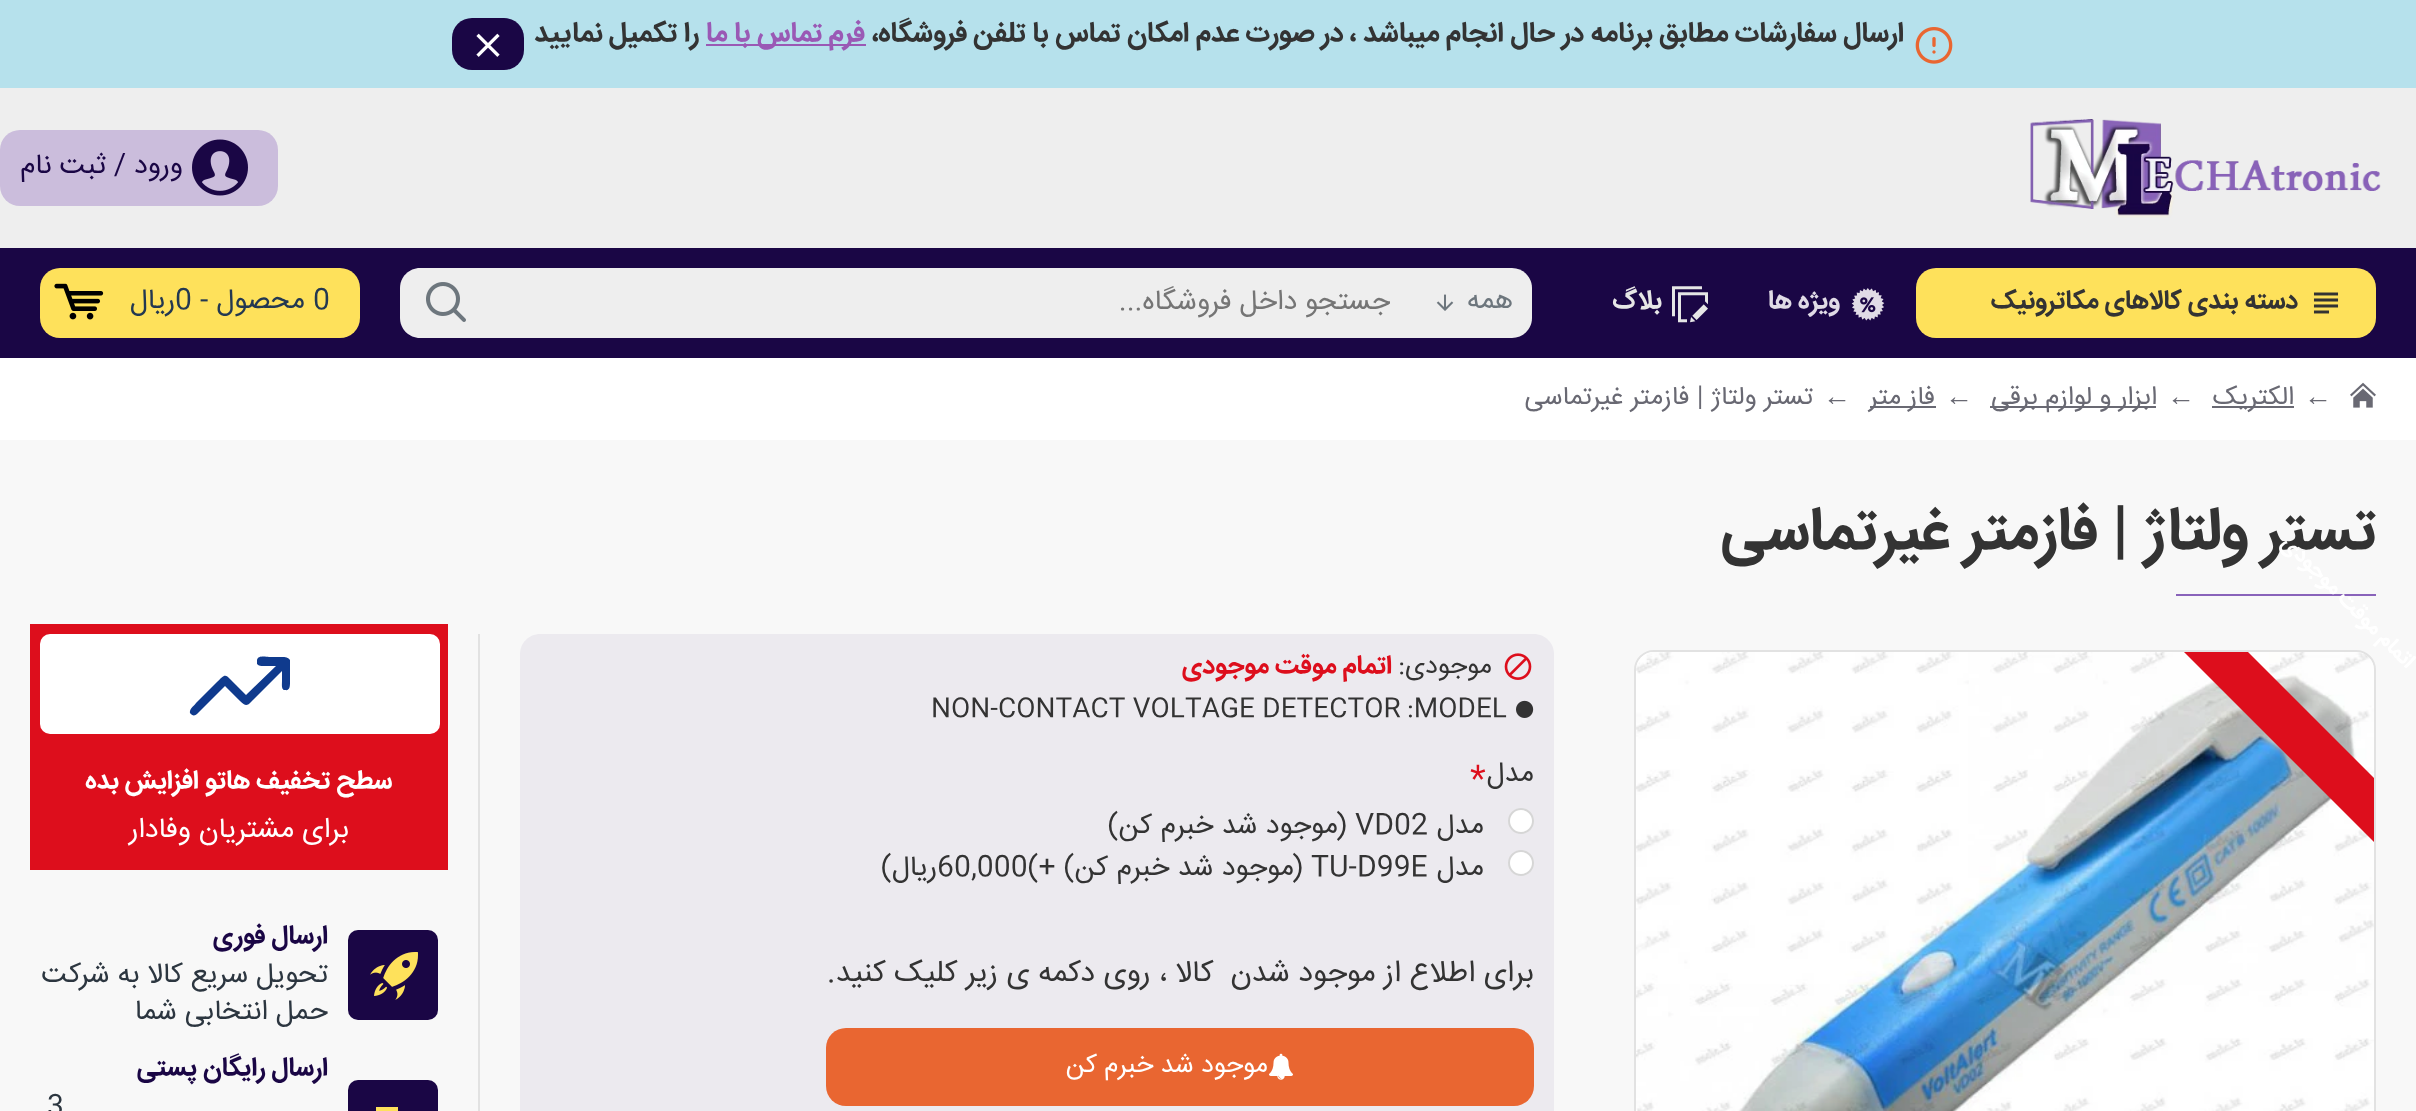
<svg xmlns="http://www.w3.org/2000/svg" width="2416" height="1111">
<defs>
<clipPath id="clip1"><rect x="514" y="280" width="876" height="48"/></clipPath>
</defs>
<rect width="100%" height="100%" fill="#f8f8f8"/>
<rect width="2416" height="88" fill="#b6e1ec"/>
<image x="1915" y="27" width="38" height="37" href="media/1.png"/>
<text x="1904" y="41" style="font-family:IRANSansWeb;font-size:28px;font-weight:bold;direction:rtl;fill:#333">ارسال سفارشات مطابق برنامه در حال انجام میباشد ، در صورت عدم امکان تماس با تلفن فروشگاه،</text>
<rect x="706" y="44" width="160" height="2" fill="#9a59b5"/>
<text x="865" y="41" style="font-family:IRANSansWeb;font-size:28px;font-weight:bold;direction:rtl;fill:#9a59b5">فرم تماس با ما</text>
<text x="699" y="41" style="font-family:IRANSansWeb;font-size:28px;font-weight:bold;direction:rtl;fill:#333">را تکمیل نمایید</text>
<rect x="452" y="18" width="72" height="52" rx="20" fill="#1a0645"/>
<image x="476" y="33" width="24" height="24" href="media/2.png"/>
<rect y="88" width="2416" height="160" fill="#eee"/>
<image x="2030" y="119" width="351" height="99" href="media/3.png"/>
<rect y="130" width="278" height="76" rx="20" fill="#cbbddc"/>
<image x="192" y="139" width="56" height="57" href="media/4.png"/>
<text x="183" y="173" style="font-family:IRANSansWeb;font-size:28px;direction:rtl;fill:#1a0645">ورود / ثبت نام</text>
<rect y="248" width="2416" height="110" fill="#1a0645"/>
<rect x="1916" y="268" width="460" height="70" rx="20" fill="#fee15b"/>
<image x="2313" y="292" width="26" height="22" href="media/5.png"/>
<text x="2298" y="308" style="font-family:IRANSansWeb;font-size:26px;font-weight:bold;direction:rtl;fill:#333">دسته بندی کالاهای مکاترونیک</text>
<image x="1851" y="288" width="34" height="33" href="media/6.png"/>
<text x="1840" y="308" style="font-family:IRANSansWeb;font-size:26px;font-weight:bold;direction:rtl;fill:#e0dbe6">ویژه ها</text>
<image x="1672" y="286" width="36" height="37" href="media/7.png"/>
<text x="1662" y="308" style="font-family:IRANSansWeb;font-size:26px;font-weight:bold;direction:rtl;fill:#e6e6e6">بلاگ</text>
<path d="M1414 268h98c11 0 20 9 20 20v30c0 11-9 20-20 20h-98z" fill="#eee"/>
<text x="1513" y="308" style="font-family:IRANSansWeb;font-size:28px;direction:rtl;fill:#6d767d">همه</text>
<image x="1436" y="294" width="18" height="17" href="media/8.png"/>
<rect x="490" y="268" width="924" height="70" fill="#eee"/>
<g clip-path="url(#clip1)">
<text x="1390" y="309" style="font-family:IRANSansWeb;font-size:28px;direction:rtl;fill:#757575">جستجو داخل فروشگاه...</text>
</g>
<path d="M420 268h70v70h-70c-11 0-20-9-20-20v-30c0-11 9-20 20-20z" fill="#eee"/>
<image x="426" y="282" width="40" height="40" href="media/9.png"/>
<rect x="40" y="268" width="320" height="70" rx="20" fill="#fee15b"/>
<text x="313" y="308" style="font-family:IRANSansWeb;font-size:28px;fill:#233851">0</text>
<text x="305" y="308" style="font-family:IRANSansWeb;font-size:28px;direction:rtl;fill:#233851">محصول -</text>
<text x="175" y="308" style="font-family:IRANSansWeb;font-size:28px;fill:#233851">0</text>
<text x="175" y="308" style="font-family:IRANSansWeb;font-size:28px;direction:rtl;fill:#233851">ریال</text>
<image x="54" y="283" width="50" height="37" href="media/10.png"/>
<rect y="358" width="2416" height="82" fill="#fff"/>
<image x="2350" y="382" width="26" height="26" href="media/11.png"/>
<text x="2332" y="396" transform="rotate(180 2332 396)" style="font-family:Liberation Serif;font-size:28px;fill:#696973">→</text>
<rect x="2212" y="406" width="82" height="2" fill="#696973"/>
<text x="2294" y="404" style="font-family:IRANSansWeb;font-size:26px;direction:rtl;fill:#696973">الکتریک</text>
<text x="2195" y="396" transform="rotate(180 2195 396)" style="font-family:Liberation Serif;font-size:28px;fill:#696973">→</text>
<rect x="1990" y="406" width="166" height="2" fill="#696973"/>
<text x="2157" y="404" style="font-family:IRANSansWeb;font-size:26px;direction:rtl;fill:#696973">ابزار و لوازم برقی</text>
<text x="1973" y="396" transform="rotate(180 1973 396)" style="font-family:Liberation Serif;font-size:28px;fill:#696973">→</text>
<rect x="1870" y="406" width="66" height="2" fill="#696973"/>
<text x="1935" y="404" style="font-family:IRANSansWeb;font-size:26px;direction:rtl;fill:#696973">فاز متر</text>
<text x="1851" y="396" transform="rotate(180 1851 396)" style="font-family:Liberation Serif;font-size:28px;fill:#696973">→</text>
<text x="1813" y="404" style="font-family:IRANSansWeb;font-size:26px;direction:rtl;fill:#696973">تستر ولتاژ | فازمتر غیرتماسی</text>
<text x="2376" y="548" style="font-family:IRANSansWeb;font-size:60px;font-weight:bold;direction:rtl;fill:#333">تستر ولتاژ | فازمتر غیرتماسی</text>
<rect x="2176" y="594" width="200" height="2" fill="#8963ba"/>
<rect x="1635" y="651" width="740" height="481" rx="19" fill="none" stroke="#e2e2e2" stroke-width="2"/>
<image x="1636" y="652" width="738" height="459" href="media/12.png"/>
<path d="M2374 842l-190-190h64l126 126z" fill="#dd0e1c"/>
<text x="2407" y="669" transform="rotate(45 2407 669)" style="font-family:IRANSansWeb;font-size:22px;font-weight:bold;direction:rtl;fill:#fff">اتمام موقت موجودی</text>
<path d="M540 634h994c11 0 20 9 20 20v78h-1034v-78c0-11 9-20 20-20z" fill="#eceaef"/>
<image x="1504" y="653" width="28" height="27" href="media/13.png"/>
<text x="1492" y="673" style="font-family:IRANSansWeb;font-size:26px;direction:rtl;fill:#333">موجودی:</text>
<text x="1392" y="673" style="font-family:IRANSansWeb;font-size:26px;font-weight:bold;direction:rtl;fill:#dd0e1c">اتمام موقت موجودی</text>
<image x="1516" y="700" width="18" height="18" href="media/14.png"/>
<text x="1407" y="716" style="font-family:IRANSansWeb;font-size:26px;fill:#333">:MODEL</text>
<text x="931" y="716" style="font-family:IRANSansWeb;font-size:26px;fill:#333">NON-CONTACT VOLTAGE DETECTOR</text>
<rect x="520" y="732" width="1034" height="379" fill="#eceaef"/>
<text x="1534" y="781" style="font-family:IRANSansWeb;font-size:28px;direction:rtl;fill:#333">مدل</text>
<text x="1470" y="789" style="font-family:IRANSansWeb;font-size:34px;fill:#dd0e1c">*</text>
<circle cx="1521" cy="821" r="13" fill="#fff"/>
<circle cx="1521" cy="821" r="12" fill="none" stroke="#7676764d" stroke-width="2"/>
<text x="1484" y="833" style="font-family:IRANSansWeb;font-size:28px;direction:rtl;fill:#333">مدل</text>
<text x="1355" y="833" style="font-family:IRANSansWeb;font-size:28px;fill:#333">VD02</text>
<text x="1347" y="833" word-spacing="0.5" style="font-family:IRANSansWeb;font-size:28px;direction:rtl;fill:#333">(موجود شد خبرم کن)</text>
<circle cx="1521" cy="863" r="13" fill="#fff"/>
<circle cx="1521" cy="863" r="12" fill="none" stroke="#7676764d" stroke-width="2"/>
<text x="1484" y="875" style="font-family:IRANSansWeb;font-size:28px;direction:rtl;fill:#333">مدل</text>
<text x="1311" y="875" style="font-family:IRANSansWeb;font-size:28px;fill:#333">TU-D99E</text>
<text x="1303" y="875" word-spacing="0.5" style="font-family:IRANSansWeb;font-size:28px;direction:rtl;fill:#333">(موجود شد خبرم کن)</text>
<text x="937" y="875" style="font-family:IRANSansWeb;font-size:28px;fill:#333">60,000(+</text>
<text x="937" y="875" style="font-family:IRANSansWeb;font-size:28px;direction:rtl;fill:#333">ریال)</text>
<text x="1534" y="981" style="font-family:IRANSansWeb;font-size:30px;direction:rtl;fill:#333" xml:space="preserve">برای اطلاع از موجود شدن  کالا ، روی دکمه ی زیر کلیک کنید.</text>
<rect x="826" y="1028" width="708" height="78" rx="20" fill="#e96631"/>
<image x="1269" y="1053" width="24" height="27" href="media/15.png"/>
<text x="1268" y="1072" style="font-family:IRANSansWeb;font-size:26px;direction:rtl;fill:#fff">موجود شد خبرم کن</text>
<rect x="478" y="634" width="2" height="477" fill="#e2e2e2"/>
<rect x="30" y="624" width="418" height="246" fill="#dd0e1c"/>
<rect x="40" y="634" width="400" height="100" rx="10" fill="#fff"/>
<path d="M290 660c-2-4-9-3-13-3h-8c-3 0-11-2-12 3v4c2 2 4 2 6 2h13l-30 29l-15-15c-6-7-7-5-14 2l-21 21c-1 2-7 6-6 10c2 3 5 3 7 1l28-28l15 15c7 7 8 4 15-3l27-27v10c0 3-1 9 3 9c5 1 5-4 5-8z" fill="#0f3a8d"/>
<text x="392" y="788" style="font-family:IRANSansWeb;font-size:26px;font-weight:bold;direction:rtl;fill:#fff">سطح تخفیف هاتو افزایش بده</text>
<text x="349" y="837" style="font-family:IRANSansWeb;font-size:28px;direction:rtl;fill:#fff">برای مشتریان وفادار</text>
<rect x="348" y="930" width="90" height="90" rx="10" fill="#1a0645"/>
<image x="370" y="952" width="48" height="48" href="media/16.png"/>
<text x="328" y="943" style="font-family:IRANSansWeb;font-size:26px;font-weight:bold;direction:rtl;fill:#1a0645">ارسال فوری</text>
<text x="328" y="982" style="font-family:IRANSansWeb;font-size:28px;direction:rtl;fill:#2c3640">تحویل سریع کالا به شرکت</text>
<text x="328" y="1019" style="font-family:IRANSansWeb;font-size:28px;direction:rtl;fill:#2c3640">حمل انتخابی شما</text>
<rect x="348" y="1080" width="90" height="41" rx="10" fill="#1a0645"/>
<rect x="376" y="1107" width="22" height="4" fill="#fee15b"/>
<text x="328" y="1075" style="font-family:IRANSansWeb;font-size:26px;font-weight:bold;direction:rtl;fill:#1a0645">ارسال رایگان پستی</text>
<text x="47" y="1114" style="font-family:IRANSansWeb;font-size:28px;fill:#2c3640">3</text>
</svg>
